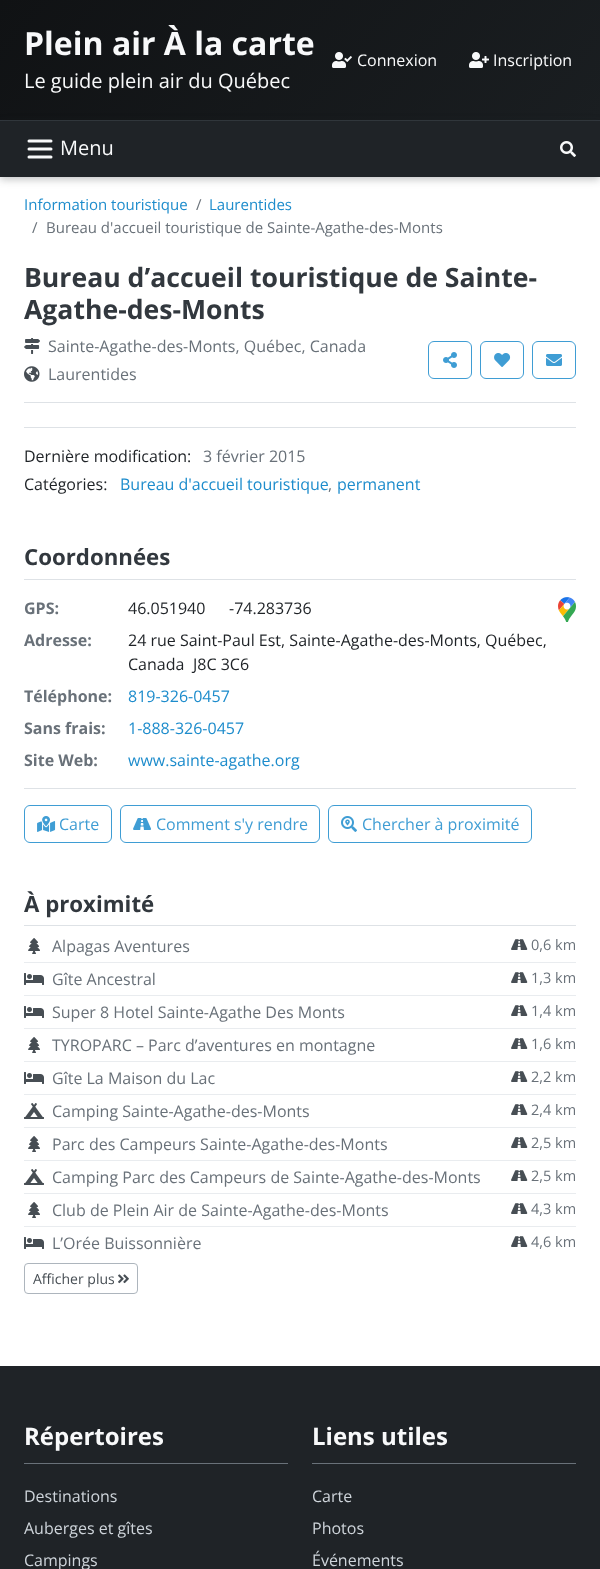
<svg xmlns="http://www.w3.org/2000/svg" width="600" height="1569">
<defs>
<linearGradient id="g1" gradientUnits="userSpaceOnUse" x1="94" y1="-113" x2="506" y2="233"><stop offset="0" stop-color="#101214"/><stop offset="1" stop-color="#1a1e21"/></linearGradient>
</defs>
<rect width="100%" height="100%" fill="#fff"/>
<rect width="600" height="120" fill="url(#g1)"/>
<rect y="120" width="600" height="1" fill="#32383e"/>
<text x="24" y="55" style="font-family:Open Sans;font-size:32px;font-weight:bold;fill:#f8f9fa">Plein air À la carte</text>
<text x="24" y="88" style="font-family:Open Sans;font-size:20px;fill:#f8f9fa">Le guide plein air du Québec</text>
<image x="332" y="52" width="20" height="16" href="media/1.png"/>
<text x="357" y="66" style="font-family:Open Sans;font-size:16px;fill:#f8f9fa">Connexion</text>
<image x="469" y="52" width="20" height="16" href="media/2.png"/>
<text x="493" y="66" style="font-family:Open Sans;font-size:16px;fill:#f8f9fa">Inscription</text>
<rect y="123" width="600" height="56" fill="#1f23274d" filter="blur(4px)"/>
<rect y="121" width="600" height="56" fill="#1f2327"/>
<path d="M29 141h22m-22 8h22m-22 8h22" fill="none" stroke="#f8f9fa" stroke-width="3" stroke-linecap="round"/>
<text x="60" y="155" style="font-family:Open Sans;font-size:20px;fill:#f8f9fa">Menu</text>
<image x="560" y="141" width="16" height="16" href="media/3.png"/>
<text x="24" y="210" style="font-family:Open Sans;font-size:15px;fill:#1d8ccc">Information touristique</text>
<text x="196" y="210" style="font-family:Open Sans;font-size:15px;fill:#697179">/</text>
<text x="209" y="210" style="font-family:Open Sans;font-size:15px;fill:#1d8ccc">Laurentides</text>
<text x="32" y="233" style="font-family:Open Sans;font-size:15px;fill:#697179">/</text>
<text x="46" y="233" style="font-family:Open Sans;font-size:15px;fill:#697179">Bureau d'accueil touristique de Sainte-Agathe-des-Monts</text>
<rect x="24" y="402" width="552" height="1" fill="#dee2e6"/>
<text x="24" y="287" style="font-family:Open Sans;font-size:26.6px;font-weight:bold;fill:#32383e">Bureau d’accueil touristique de Sainte-</text>
<text x="24" y="319" style="font-family:Open Sans;font-size:26.6px;font-weight:bold;fill:#32383e">Agathe-des-Monts</text>
<image x="24" y="338" width="16" height="16" href="media/4.png"/>
<text x="48" y="352" style="font-family:Open Sans;font-size:16px;fill:#697179">Sainte-Agathe-des-Monts, Québec, Canada</text>
<image x="24" y="366" width="16" height="16" href="media/5.png"/>
<text x="48" y="380" style="font-family:Open Sans;font-size:16px;fill:#697179">Laurentides</text>
<rect x="428.5" y="341.5" width="43" height="37" rx="5.5" fill="none" stroke="#3f9dd4"/>
<image x="443" y="352" width="14" height="16" href="media/6.png"/>
<rect x="480.5" y="341.5" width="43" height="37" rx="5.5" fill="none" stroke="#3f9dd4"/>
<image x="494" y="353" width="17" height="14" href="media/7.png"/>
<rect x="532.5" y="341.5" width="43" height="37" rx="5.5" fill="none" stroke="#3f9dd4"/>
<image x="546" y="354" width="16" height="12" href="media/8.png"/>
<rect x="24" y="427" width="552" height="1" fill="#dee2e6"/>
<text x="24" y="462" style="font-family:Open Sans;font-size:16px;fill:#1f2327">Dernière modification:</text>
<text x="203" y="462" style="font-family:Open Sans;font-size:16px;fill:#697179">3 février 2015</text>
<text x="24" y="490" style="font-family:Open Sans;font-size:16px;fill:#1f2327">Catégories:</text>
<text x="120" y="490" style="font-family:Open Sans;font-size:16px;fill:#1d8ccc">Bureau d'accueil touristique</text>
<text x="328" y="490" style="font-family:Open Sans;font-size:16px;fill:#697179">,</text>
<text x="337" y="490" style="font-family:Open Sans;font-size:16px;fill:#1d8ccc">permanent</text>
<rect x="24" y="579" width="552" height="1" fill="#dee2e6"/>
<text x="24" y="565" style="font-family:Open Sans;font-size:22.25px;font-weight:bold;fill:#32383e">Coordonnées</text>
<text x="24" y="614" style="font-family:Open Sans;font-size:16px;font-weight:bold;fill:#697179">GPS:</text>
<text x="128" y="614" style="font-family:Open Sans;font-size:16px;fill:#1f2327">46.051940</text>
<text x="229" y="614" style="font-family:Open Sans;font-size:16px;fill:#1f2327">-74.283736</text>
<image x="558" y="597" width="18" height="25" href="media/9.png"/>
<text x="24" y="646" style="font-family:Open Sans;font-size:16px;font-weight:bold;fill:#697179">Adresse:</text>
<text x="128" y="646" style="font-family:Open Sans;font-size:16px;fill:#1f2327">24 rue Saint-Paul Est, Sainte-Agathe-des-Monts, Québec,</text>
<text x="128" y="670" style="font-family:Open Sans;font-size:16px;fill:#1f2327">Canada</text>
<text x="193" y="670" style="font-family:Open Sans;font-size:16px;fill:#1f2327">J8C 3C6</text>
<text x="24" y="702" style="font-family:Open Sans;font-size:16px;font-weight:bold;fill:#697179">Téléphone:</text>
<text x="128" y="702" style="font-family:Open Sans;font-size:16px;fill:#1d8ccc">819-326-0457</text>
<text x="24" y="734" style="font-family:Open Sans;font-size:16px;font-weight:bold;fill:#697179">Sans frais:</text>
<text x="128" y="734" style="font-family:Open Sans;font-size:16px;fill:#1d8ccc">1-888-326-0457</text>
<text x="24" y="766" style="font-family:Open Sans;font-size:16px;font-weight:bold;fill:#697179">Site Web:</text>
<text x="128" y="766" style="font-family:Open Sans;font-size:16px;fill:#1d8ccc">www.sainte-agathe.org</text>
<rect x="24" y="788" width="552" height="1" fill="#dee2e6"/>
<rect x="24.5" y="805.5" width="87" height="37" rx="5.5" fill="none" stroke="#3f9dd4"/>
<image x="37" y="816" width="19" height="16" href="media/10.png"/>
<text x="59" y="830" style="font-family:Open Sans;font-size:16px;fill:#3f9dd4">Carte</text>
<rect x="120.5" y="805.5" width="199" height="37" rx="5.5" fill="none" stroke="#3f9dd4"/>
<image x="133" y="818" width="18" height="12" href="media/11.png"/>
<text x="156" y="830" style="font-family:Open Sans;font-size:16px;fill:#3f9dd4">Comment s'y rendre</text>
<rect x="328.5" y="805.5" width="203" height="37" rx="5.5" fill="none" stroke="#3f9dd4"/>
<image x="341" y="816" width="16" height="16" href="media/12.png"/>
<text x="362" y="830" style="font-family:Open Sans;font-size:16px;fill:#3f9dd4">Chercher à proximité</text>
<rect x="24" y="925" width="552" height="1" fill="#dee2e6"/>
<text x="24" y="912" style="font-family:Open Sans;font-size:22.25px;font-weight:bold;fill:#32383e">À proximité</text>
<image x="28" y="938" width="12" height="16" href="media/13.png"/>
<text x="52" y="952" style="font-family:Open Sans;font-size:16px;fill:#697179">Alpagas Aventures</text>
<image x="511" y="939" width="17" height="11" href="media/14.png"/>
<text x="531" y="950" style="font-family:Open Sans;font-size:14.5px;fill:#697179">0,6 km</text>
<rect x="24" y="962" width="552" height="1" fill="#e9ecef"/>
<image x="24" y="973" width="20" height="12" href="media/15.png"/>
<text x="52" y="985" style="font-family:Open Sans;font-size:16px;fill:#697179">Gîte Ancestral</text>
<image x="511" y="972" width="17" height="11" href="media/14.png"/>
<text x="531" y="983" style="font-family:Open Sans;font-size:14.5px;fill:#697179">1,3 km</text>
<rect x="24" y="995" width="552" height="1" fill="#e9ecef"/>
<image x="24" y="1006" width="20" height="12" href="media/15.png"/>
<text x="52" y="1018" style="font-family:Open Sans;font-size:16px;fill:#697179">Super 8 Hotel Sainte-Agathe Des Monts</text>
<image x="511" y="1005" width="17" height="11" href="media/14.png"/>
<text x="531" y="1016" style="font-family:Open Sans;font-size:14.5px;fill:#697179">1,4 km</text>
<rect x="24" y="1028" width="552" height="1" fill="#e9ecef"/>
<image x="28" y="1037" width="12" height="16" href="media/13.png"/>
<text x="52" y="1051" style="font-family:Open Sans;font-size:16px;fill:#697179">TYROPARC – Parc d’aventures en montagne</text>
<image x="511" y="1038" width="17" height="11" href="media/14.png"/>
<text x="531" y="1049" style="font-family:Open Sans;font-size:14.5px;fill:#697179">1,6 km</text>
<rect x="24" y="1061" width="552" height="1" fill="#e9ecef"/>
<image x="24" y="1072" width="20" height="12" href="media/15.png"/>
<text x="52" y="1084" style="font-family:Open Sans;font-size:16px;fill:#697179">Gîte La Maison du Lac</text>
<image x="511" y="1071" width="17" height="11" href="media/14.png"/>
<text x="531" y="1082" style="font-family:Open Sans;font-size:14.5px;fill:#697179">2,2 km</text>
<rect x="24" y="1094" width="552" height="1" fill="#e9ecef"/>
<image x="24" y="1103" width="20" height="16" href="media/16.png"/>
<text x="52" y="1117" style="font-family:Open Sans;font-size:16px;fill:#697179">Camping Sainte-Agathe-des-Monts</text>
<image x="511" y="1104" width="17" height="11" href="media/14.png"/>
<text x="531" y="1115" style="font-family:Open Sans;font-size:14.5px;fill:#697179">2,4 km</text>
<rect x="24" y="1127" width="552" height="1" fill="#e9ecef"/>
<image x="28" y="1136" width="12" height="16" href="media/13.png"/>
<text x="52" y="1150" style="font-family:Open Sans;font-size:16px;fill:#697179">Parc des Campeurs Sainte-Agathe-des-Monts</text>
<image x="511" y="1137" width="17" height="11" href="media/14.png"/>
<text x="531" y="1148" style="font-family:Open Sans;font-size:14.5px;fill:#697179">2,5 km</text>
<rect x="24" y="1160" width="552" height="1" fill="#e9ecef"/>
<image x="24" y="1169" width="20" height="16" href="media/16.png"/>
<text x="52" y="1183" style="font-family:Open Sans;font-size:16px;fill:#697179">Camping Parc des Campeurs de Sainte-Agathe-des-Monts</text>
<image x="511" y="1170" width="17" height="11" href="media/14.png"/>
<text x="531" y="1181" style="font-family:Open Sans;font-size:14.5px;fill:#697179">2,5 km</text>
<rect x="24" y="1193" width="552" height="1" fill="#e9ecef"/>
<image x="28" y="1202" width="12" height="16" href="media/13.png"/>
<text x="52" y="1216" style="font-family:Open Sans;font-size:16px;fill:#697179">Club de Plein Air de Sainte-Agathe-des-Monts</text>
<image x="511" y="1203" width="17" height="11" href="media/14.png"/>
<text x="531" y="1214" style="font-family:Open Sans;font-size:14.5px;fill:#697179">4,3 km</text>
<rect x="24" y="1226" width="552" height="1" fill="#e9ecef"/>
<image x="24" y="1237" width="20" height="12" href="media/15.png"/>
<text x="52" y="1249" style="font-family:Open Sans;font-size:16px;fill:#697179">L’Orée Buissonnière</text>
<image x="511" y="1236" width="17" height="11" href="media/14.png"/>
<text x="531" y="1247" style="font-family:Open Sans;font-size:14.5px;fill:#697179">4,6 km</text>
<rect x="24.5" y="1263.5" width="113" height="30" rx="3.5" fill="none" stroke="#adb5bd"/>
<text x="33" y="1284" style="font-family:Open Sans;font-size:14px;fill:#474e54">Afficher plus</text>
<image x="118" y="1274" width="11" height="10" href="media/17.png"/>
<rect y="1366" width="600" height="203" fill="#1f2327"/>
<rect x="24" y="1463" width="264" height="1" fill="#697179"/>
<text x="24" y="1445" style="font-family:Open Sans;font-size:24px;font-weight:bold;fill:#f8f9fa">Répertoires</text>
<text x="24" y="1502" style="font-family:Open Sans;font-size:16px;fill:#ced4da">Destinations</text>
<text x="24" y="1534" style="font-family:Open Sans;font-size:16px;fill:#ced4da">Auberges et gîtes</text>
<text x="24" y="1566" style="font-family:Open Sans;font-size:16px;fill:#ced4da">Campings</text>
<rect x="312" y="1463" width="264" height="1" fill="#697179"/>
<text x="312" y="1445" style="font-family:Open Sans;font-size:24px;font-weight:bold;fill:#f8f9fa">Liens utiles</text>
<text x="312" y="1502" style="font-family:Open Sans;font-size:16px;fill:#ced4da">Carte</text>
<text x="312" y="1534" style="font-family:Open Sans;font-size:16px;fill:#ced4da">Photos</text>
<text x="312" y="1566" style="font-family:Open Sans;font-size:16px;fill:#ced4da">Événements</text>
</svg>
